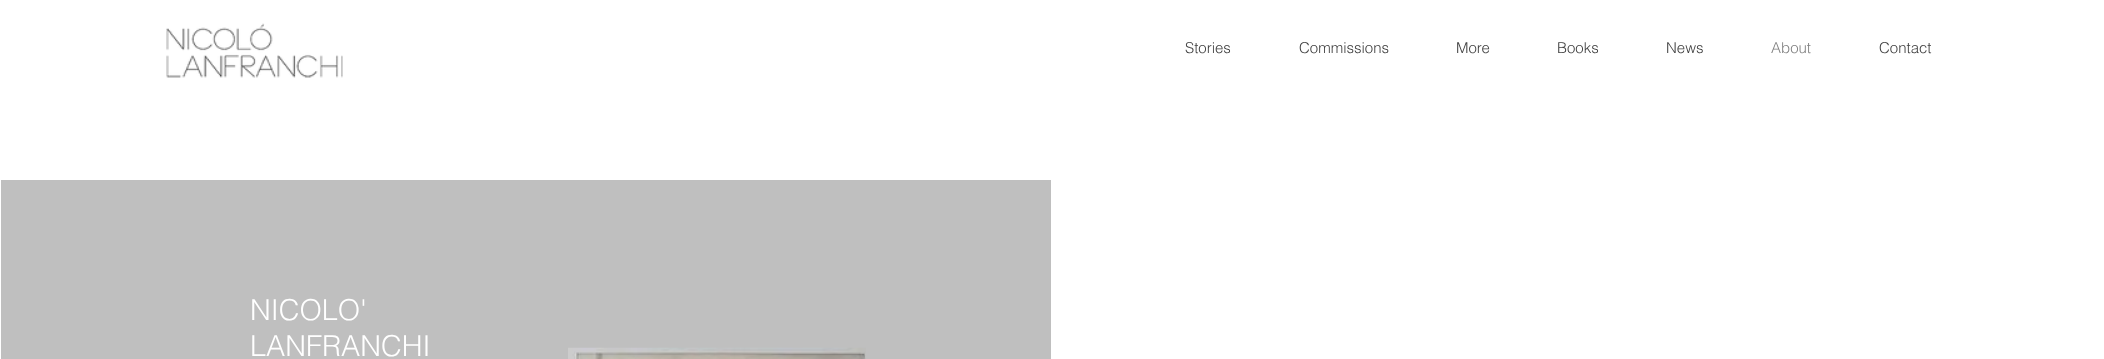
<svg xmlns="http://www.w3.org/2000/svg" width="2104" height="359">
<rect width="100%" height="100%" fill="#fff"/>
<image x="166" y="23" width="177" height="55" href="media/1.png"/>
<text x="1185" y="53" style="font-family:helvetica;font-size:15px;font-weight:300;fill:#404040">Stories</text>
<text x="1299" y="53" style="font-family:helvetica;font-size:15px;font-weight:300;fill:#404040">Commissions</text>
<text x="1456" y="53" style="font-family:helvetica;font-size:15px;font-weight:300;fill:#404040">More</text>
<text x="1557" y="53" style="font-family:helvetica;font-size:15px;font-weight:300;fill:#404040">Books</text>
<text x="1666" y="53" style="font-family:helvetica;font-size:15px;font-weight:300;fill:#404040">News</text>
<text x="1771" y="53" style="font-family:helvetica;font-size:15px;font-weight:300;fill:#808080">About</text>
<text x="1879" y="53" style="font-family:helvetica;font-size:15px;font-weight:300;fill:#404040">Contact</text>
<rect x="1" y="180" width="1050" height="179" fill="#bfbfbf"/>
<text x="250" y="320" style="font-family:helvetica;font-size:28.75px;font-weight:300;fill:#fff">NICOLO'</text>
<text x="250" y="356" style="font-family:helvetica;font-size:28.75px;font-weight:300;fill:#fff">LANFRANCHI</text>
<image x="568" y="347" width="298" height="12" href="media/2.png"/>
</svg>
